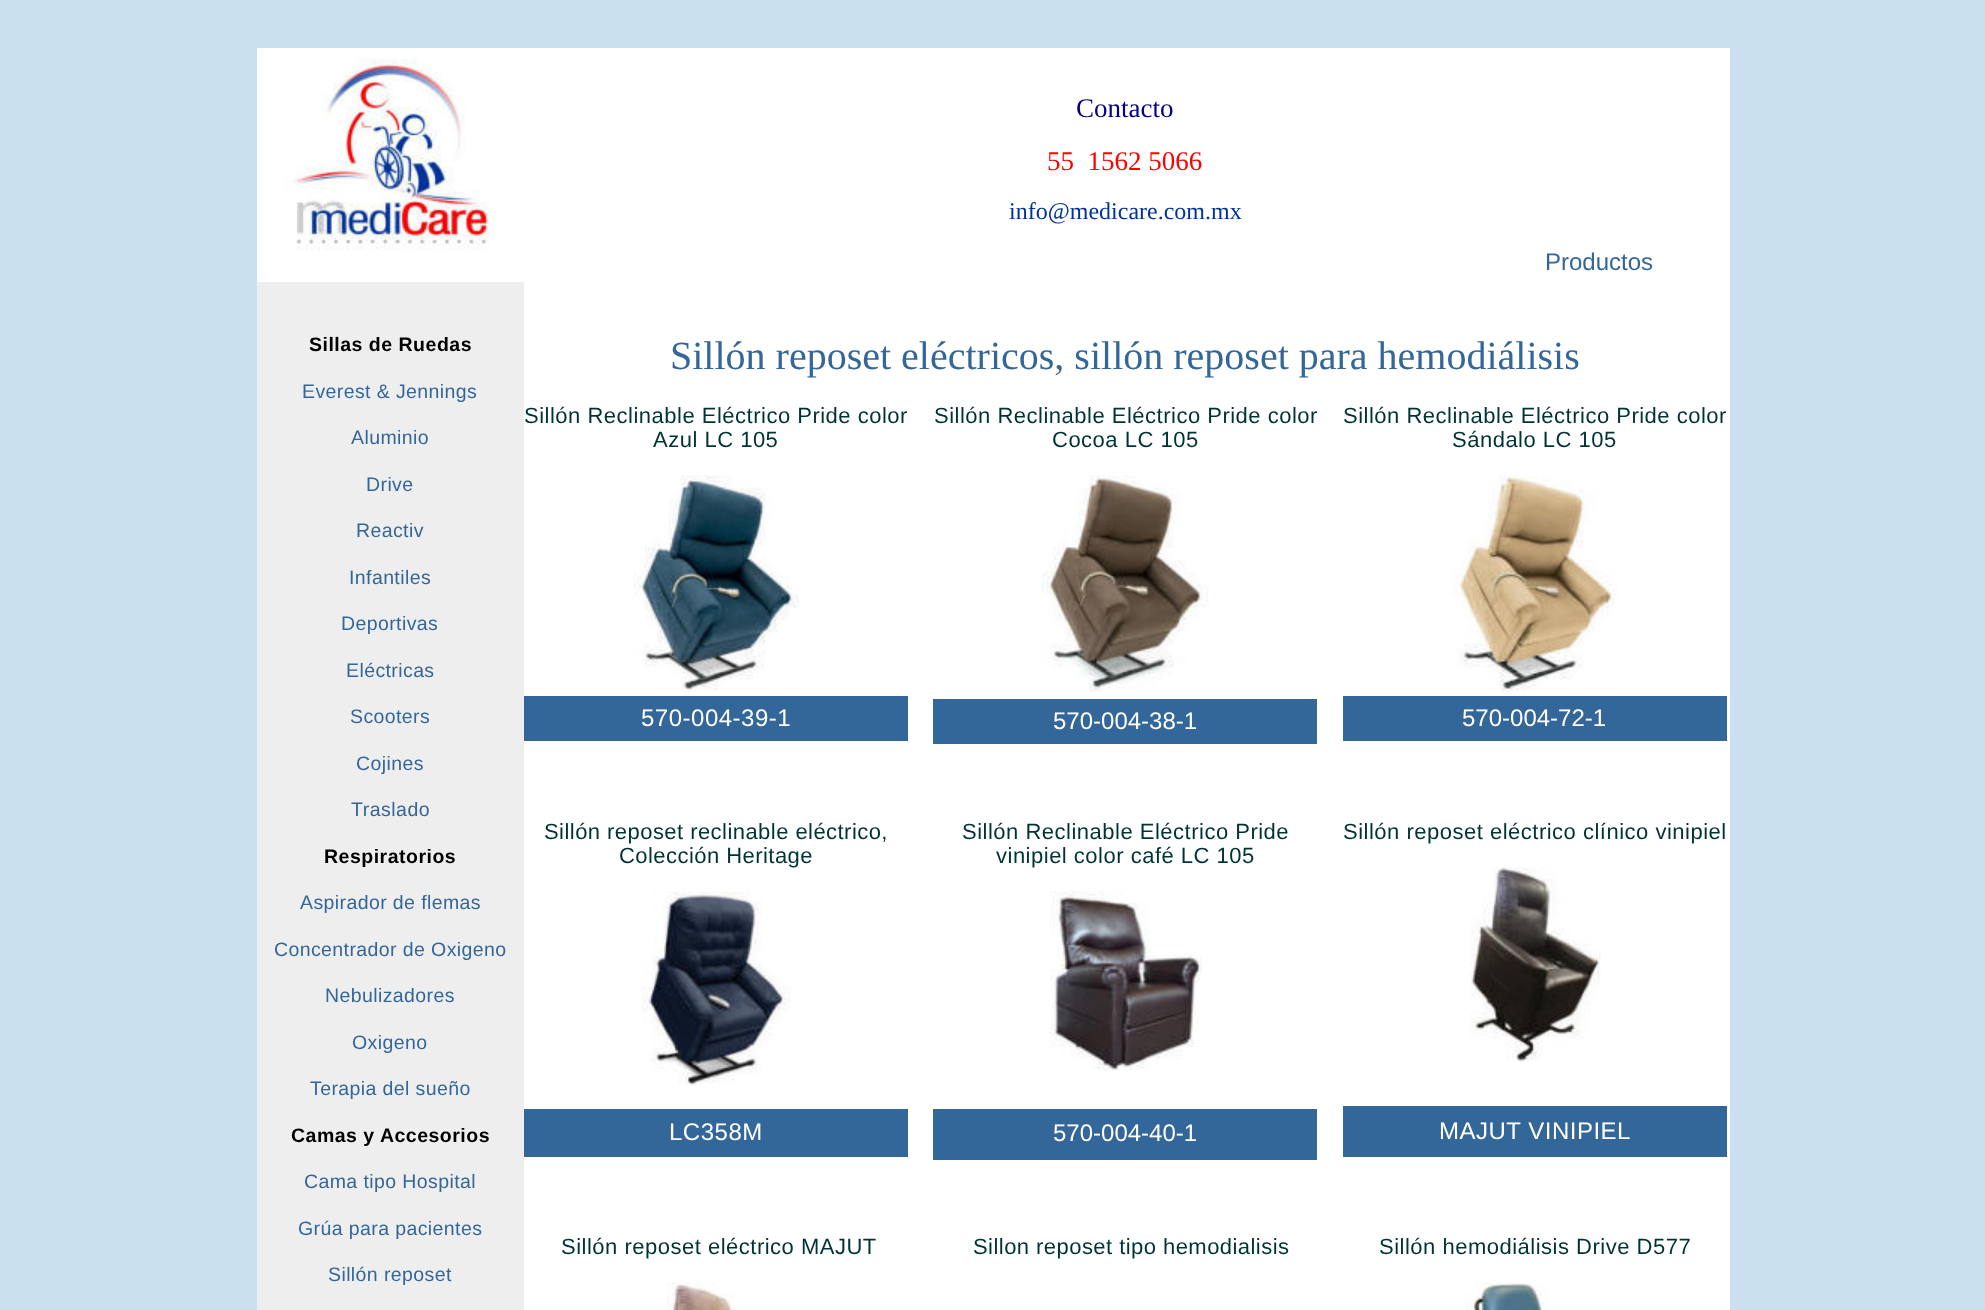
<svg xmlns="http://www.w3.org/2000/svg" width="1985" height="1310">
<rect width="100%" height="100%" fill="#cae0ee"/>
<rect x="257" y="48" width="1473" height="1262" fill="#fff"/>
<image x="285" y="58" width="205" height="193" href="media/1.png"/>
<text x="1076" y="117" style="font-family:Liberation Serif;font-size:27px;fill:#000080">Contacto</text>
<text x="1047" y="170" style="font-family:Liberation Serif;font-size:27px;fill:#f00" xml:space="preserve">55  1562 5066</text>
<text x="1009" y="219" style="font-family:Liberation Serif;font-size:24px;fill:#039">info@medicare.com.mx</text>
<text x="1545" y="270" style="font-family:Liberation Sans;font-size:24px;fill:#369">Productos</text>
<rect x="257" y="282" width="267" height="1028" fill="#eee"/>
<text x="309" y="351" style="font-family:Liberation Sans;font-size:19.5px;font-weight:bold;letter-spacing:0.5px;fill:#000">Sillas de Ruedas</text>
<text x="302" y="398" style="font-family:Liberation Sans;font-size:19.5px;letter-spacing:0.4px;fill:#369">Everest &amp; Jennings</text>
<text x="351" y="444" style="font-family:Liberation Sans;font-size:19.5px;letter-spacing:0.4px;fill:#369">Aluminio</text>
<text x="366" y="491" style="font-family:Liberation Sans;font-size:19.5px;letter-spacing:0.4px;fill:#369">Drive</text>
<text x="356" y="537" style="font-family:Liberation Sans;font-size:19.5px;letter-spacing:0.4px;fill:#369">Reactiv</text>
<text x="349" y="584" style="font-family:Liberation Sans;font-size:19.5px;letter-spacing:0.4px;fill:#369">Infantiles</text>
<text x="341" y="630" style="font-family:Liberation Sans;font-size:19.5px;letter-spacing:0.4px;fill:#369">Deportivas</text>
<text x="346" y="677" style="font-family:Liberation Sans;font-size:19.5px;letter-spacing:0.4px;fill:#369">Eléctricas</text>
<text x="350" y="723" style="font-family:Liberation Sans;font-size:19.5px;letter-spacing:0.4px;fill:#369">Scooters</text>
<text x="356" y="770" style="font-family:Liberation Sans;font-size:19.5px;letter-spacing:0.4px;fill:#369">Cojines</text>
<text x="351" y="816" style="font-family:Liberation Sans;font-size:19.5px;letter-spacing:0.5px;fill:#369">Traslado</text>
<text x="324" y="863" style="font-family:Liberation Sans;font-size:19.5px;font-weight:bold;letter-spacing:0.5px;fill:#000">Respiratorios</text>
<text x="300" y="909" style="font-family:Liberation Sans;font-size:19.5px;letter-spacing:0.4px;fill:#369">Aspirador de flemas</text>
<text x="274" y="956" style="font-family:Liberation Sans;font-size:19.5px;letter-spacing:0.4px;fill:#369">Concentrador de Oxigeno</text>
<text x="325" y="1002" style="font-family:Liberation Sans;font-size:19.5px;letter-spacing:0.4px;fill:#369">Nebulizadores</text>
<text x="352" y="1049" style="font-family:Liberation Sans;font-size:19.5px;letter-spacing:0.4px;fill:#369">Oxigeno</text>
<text x="310" y="1095" style="font-family:Liberation Sans;font-size:19.5px;letter-spacing:0.4px;fill:#369">Terapia del sueño</text>
<text x="291" y="1142" style="font-family:Liberation Sans;font-size:19.5px;font-weight:bold;letter-spacing:0.5px;fill:#000">Camas y Accesorios</text>
<text x="304" y="1188" style="font-family:Liberation Sans;font-size:19.5px;letter-spacing:0.4px;fill:#369">Cama tipo Hospital</text>
<text x="298" y="1235" style="font-family:Liberation Sans;font-size:19.5px;letter-spacing:0.4px;fill:#369">Grúa para pacientes</text>
<text x="328" y="1281" style="font-family:Liberation Sans;font-size:19.5px;letter-spacing:0.4px;fill:#369">Sillón reposet</text>
<text x="670" y="369" style="font-family:Liberation Serif;font-size:40px;fill:#369">Sillón reposet eléctricos, sillón reposet para hemodiálisis</text>
<text x="524" y="423" style="font-family:Liberation Sans;font-size:22px;letter-spacing:0.5px;fill:#033">Sillón Reclinable Eléctrico Pride color</text>
<text x="653" y="447" style="font-family:Liberation Sans;font-size:22px;letter-spacing:0.5px;fill:#033">Azul LC 105</text>
<image x="633" y="475" width="167" height="217" href="media/2.png"/>
<rect x="524" y="696" width="384" height="45" fill="#369"/>
<text x="641" y="726" style="font-family:Liberation Sans;font-size:24px;letter-spacing:0.5px;fill:#fff">570-004-39-1</text>
<text x="934" y="423" style="font-family:Liberation Sans;font-size:22px;letter-spacing:0.5px;fill:#033">Sillón Reclinable Eléctrico Pride color</text>
<text x="1052" y="447" style="font-family:Liberation Sans;font-size:22px;letter-spacing:0.5px;fill:#033">Cocoa LC 105</text>
<image x="1041" y="475" width="168" height="217" href="media/3.png"/>
<rect x="933" y="699" width="384" height="45" fill="#369"/>
<text x="1053" y="729" style="font-family:Liberation Sans;font-size:24px;fill:#fff">570-004-38-1</text>
<text x="1343" y="423" style="font-family:Liberation Sans;font-size:22px;letter-spacing:0.5px;fill:#033">Sillón Reclinable Eléctrico Pride color</text>
<text x="1452" y="447" style="font-family:Liberation Sans;font-size:22px;letter-spacing:0.5px;fill:#033">Sándalo LC 105</text>
<image x="1452" y="475" width="165" height="219" href="media/4.png"/>
<rect x="1343" y="696" width="384" height="45" fill="#369"/>
<text x="1462" y="726" style="font-family:Liberation Sans;font-size:24px;fill:#fff">570-004-72-1</text>
<text x="544" y="839" style="font-family:Liberation Sans;font-size:22px;letter-spacing:0.45px;fill:#033">Sillón reposet reclinable eléctrico,</text>
<text x="619" y="863" style="font-family:Liberation Sans;font-size:22px;letter-spacing:0.45px;fill:#033">Colección Heritage</text>
<image x="642" y="891" width="149" height="195" href="media/5.png"/>
<rect x="524" y="1109" width="384" height="48" fill="#369"/>
<text x="669" y="1140" style="font-family:Liberation Sans;font-size:24px;letter-spacing:0.5px;fill:#fff">LC358M</text>
<text x="962" y="839" style="font-family:Liberation Sans;font-size:22px;letter-spacing:0.5px;fill:#033">Sillón Reclinable Eléctrico Pride</text>
<text x="996" y="863" style="font-family:Liberation Sans;font-size:22px;letter-spacing:0.5px;fill:#033">vinipiel color café LC 105</text>
<image x="1050" y="891" width="152" height="180" href="media/6.png"/>
<rect x="933" y="1109" width="384" height="51" fill="#369"/>
<text x="1053" y="1141" style="font-family:Liberation Sans;font-size:24px;fill:#fff">570-004-40-1</text>
<text x="1343" y="839" style="font-family:Liberation Sans;font-size:22px;letter-spacing:0.5px;fill:#033">Sillón reposet eléctrico clínico vinipiel</text>
<image x="1470" y="867" width="131" height="195" href="media/7.png"/>
<rect x="1343" y="1106" width="384" height="51" fill="#369"/>
<text x="1439" y="1139" style="font-family:Liberation Sans;font-size:24px;letter-spacing:0.5px;fill:#fff">MAJUT VINIPIEL</text>
<text x="561" y="1254" style="font-family:Liberation Sans;font-size:22px;letter-spacing:0.5px;fill:#033">Sillón reposet eléctrico MAJUT</text>
<image x="667" y="1282" width="69" height="28" href="media/8.png"/>
<text x="973" y="1254" style="font-family:Liberation Sans;font-size:22px;letter-spacing:0.45px;fill:#033">Sillon reposet tipo hemodialisis</text>
<text x="1379" y="1254" style="font-family:Liberation Sans;font-size:22px;letter-spacing:0.5px;fill:#033">Sillón hemodiálisis Drive D577</text>
<image x="1464" y="1282" width="84" height="28" href="media/9.png"/>
</svg>
